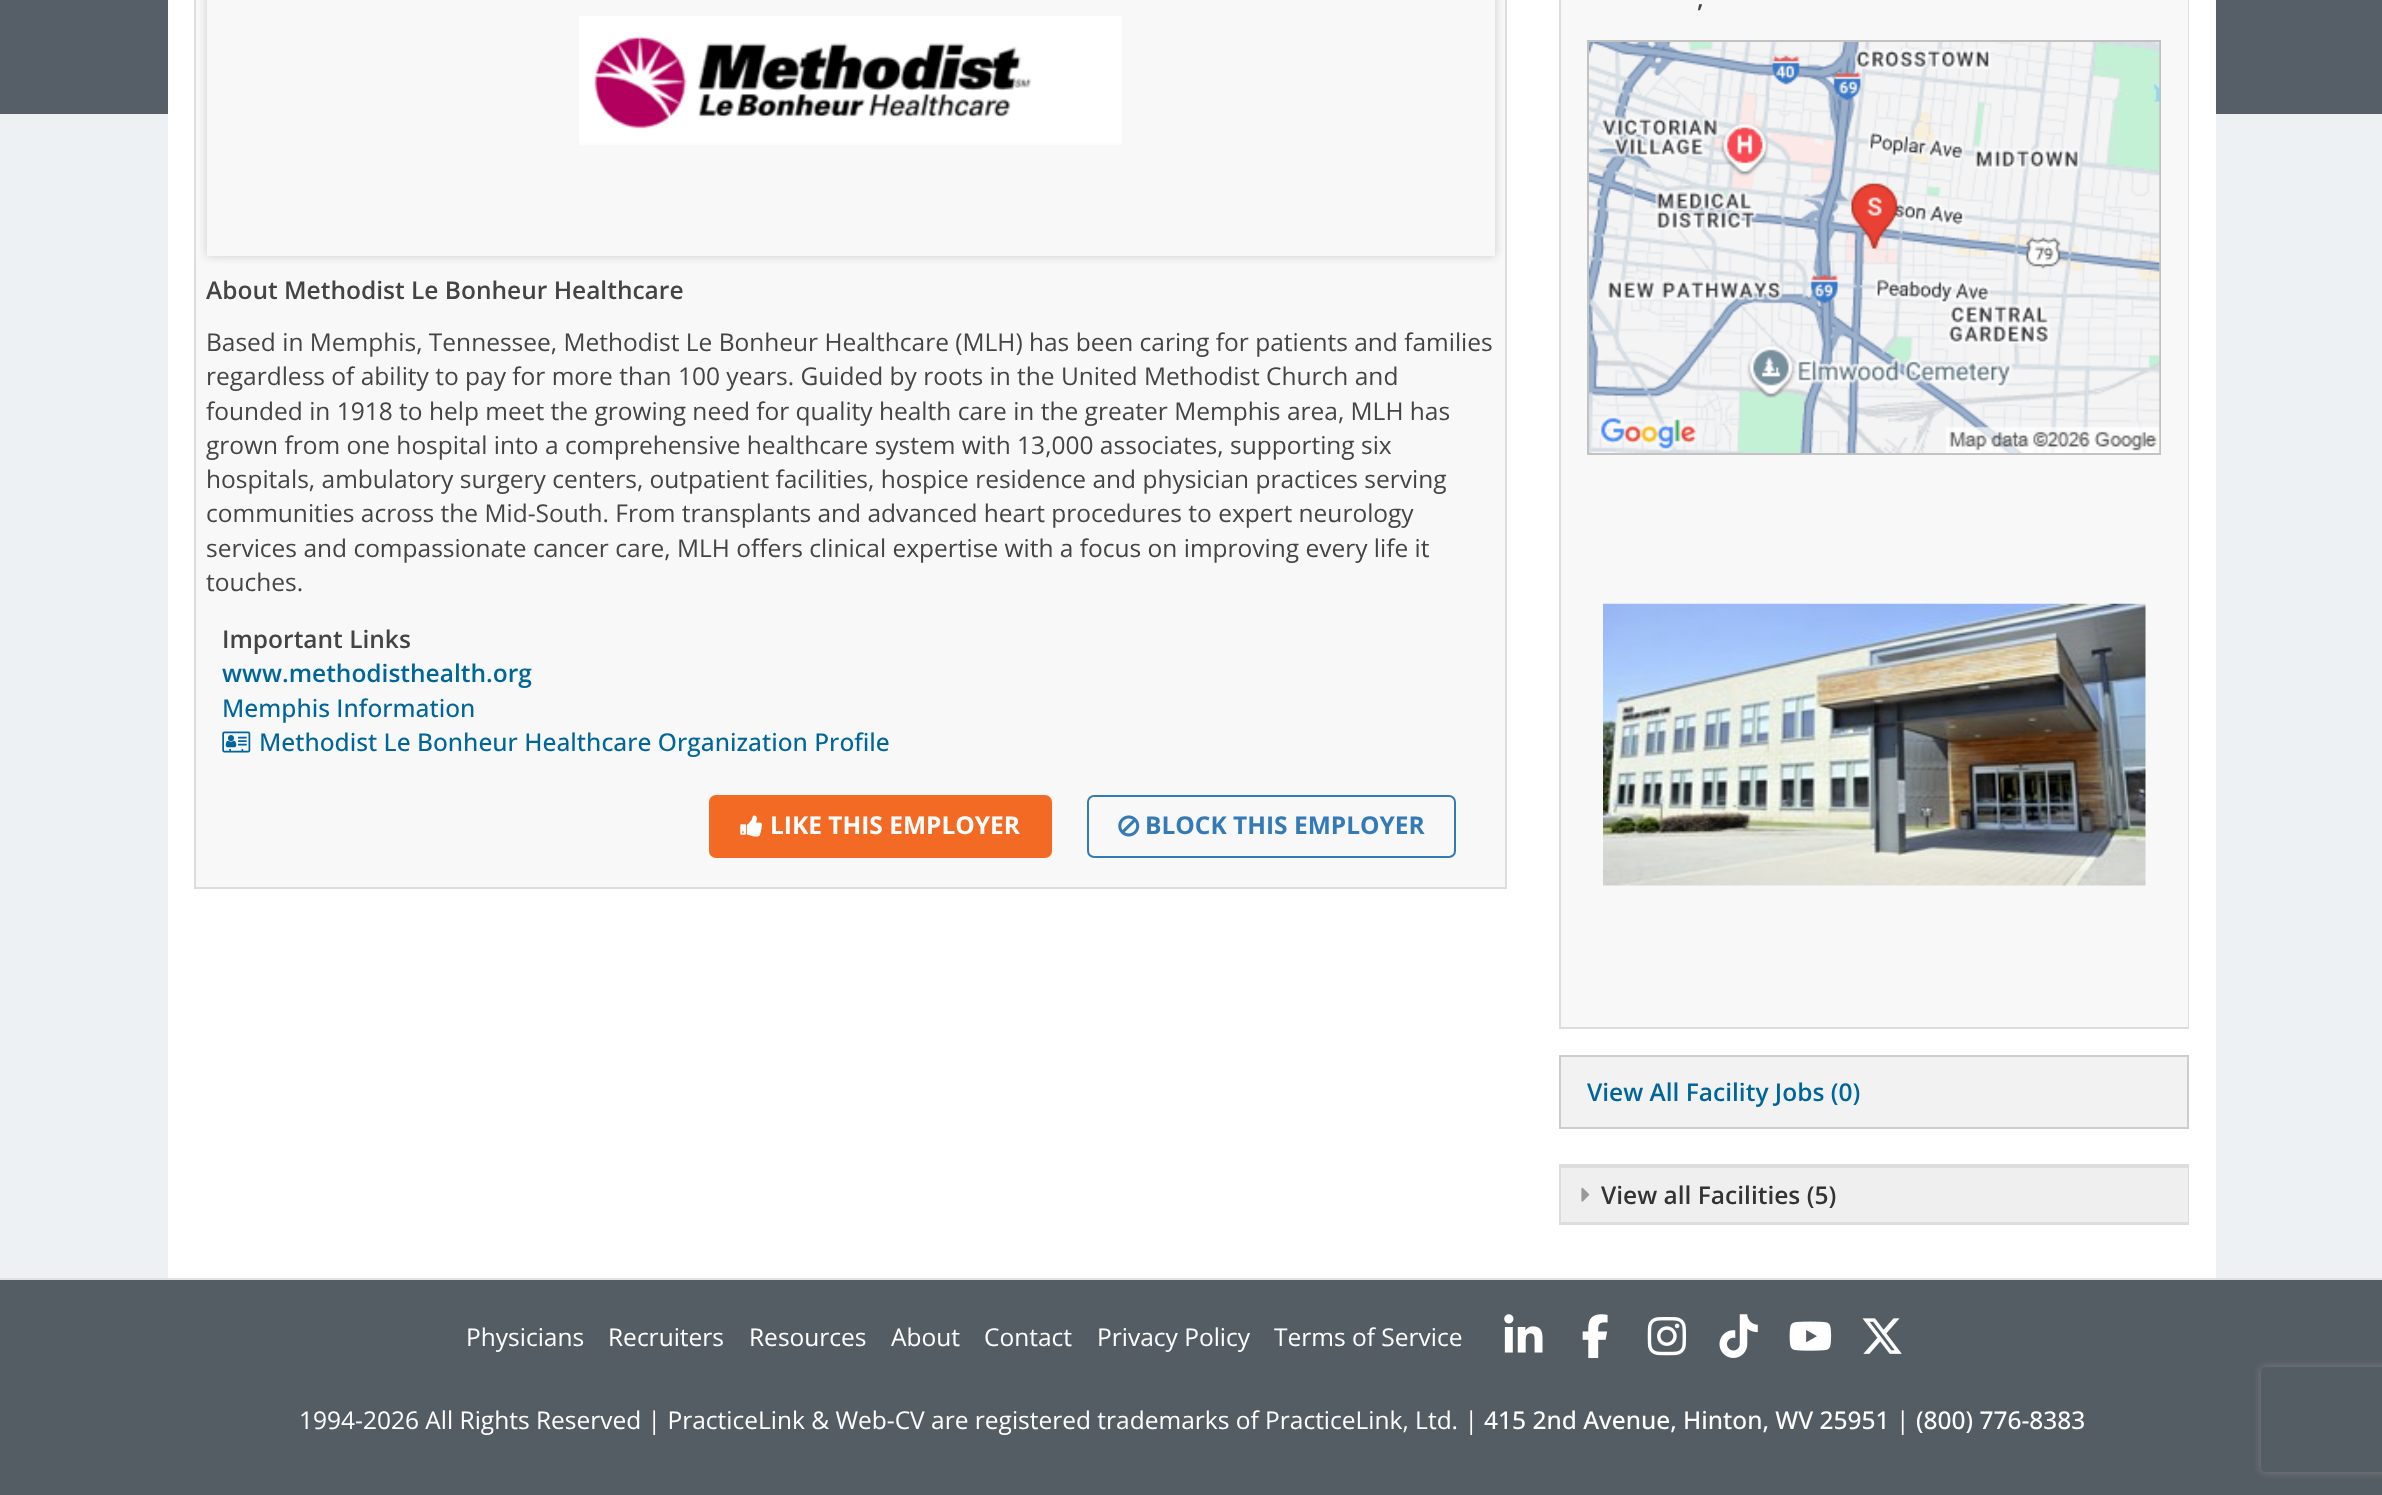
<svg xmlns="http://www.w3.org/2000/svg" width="2382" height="1495">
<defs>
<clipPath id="clip1"><path d="M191 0h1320v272h-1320zm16-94h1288v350h-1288z" clip-rule="evenodd"/></clipPath>
<clipPath id="clip2"><path d="M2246 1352h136v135h-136zm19 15h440c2 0 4 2 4 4v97c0 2-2 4-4 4h-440c-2 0-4-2-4-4v-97c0-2 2-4 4-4z" clip-rule="evenodd"/></clipPath>
</defs>
<rect width="100%" height="100%" fill="#545c64"/>
<rect y="114" width="2382" height="1164" fill="#edf1f3"/>
<rect width="2382" height="114" fill="#565e67"/>
<rect x="168" width="2048" height="1278" fill="#fff"/>
<rect x="195" y="-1" width="1311" height="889" fill="none" stroke="#ddd" stroke-width="2"/>
<rect x="196" width="1309" height="887" fill="#f8f8f8"/>
<g clip-path="url(#clip1)">
<rect x="207" y="-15" width="1288" height="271" fill="#ccc" filter="blur(5px)"/>
</g>
<image x="579" y="16" width="543" height="129" href="media/1.png"/>
<text x="206" y="299" style="font-family:Open Sans;font-size:24.5px;font-weight:600;fill:#444">About Methodist Le Bonheur Healthcare</text>
<text x="206" y="351" style="font-family:Open Sans;font-size:24.5px;fill:#444">Based in Memphis, Tennessee, Methodist Le Bonheur Healthcare (MLH) has been caring for patients and families</text>
<text x="206" y="385" style="font-family:Open Sans;font-size:24.5px;fill:#444">regardless of ability to pay for more than 100 years. Guided by roots in the United Methodist Church and</text>
<text x="206" y="420" style="font-family:Open Sans;font-size:24.5px;fill:#444">founded in 1918 to help meet the growing need for quality health care in the greater Memphis area, MLH has</text>
<text x="206" y="454" style="font-family:Open Sans;font-size:24.5px;fill:#444">grown from one hospital into a comprehensive healthcare system with 13,000 associates, supporting six</text>
<text x="206" y="488" style="font-family:Open Sans;font-size:24.5px;fill:#444">hospitals, ambulatory surgery centers, outpatient facilities, hospice residence and physician practices serving</text>
<text x="206" y="522" style="font-family:Open Sans;font-size:24.5px;fill:#444">communities across the Mid-South. From transplants and advanced heart procedures to expert neurology</text>
<text x="206" y="557" style="font-family:Open Sans;font-size:24.5px;fill:#444">services and compassionate cancer care, MLH offers clinical expertise with a focus on improving every life it</text>
<text x="206" y="591" style="font-family:Open Sans;font-size:24.5px;fill:#444">touches.</text>
<text x="222" y="648" style="font-family:Open Sans;font-size:24.5px;font-weight:600;fill:#444">Important Links</text>
<text x="222" y="682" style="font-family:Open Sans;font-size:24.5px;font-weight:600;fill:#069">www.methodisthealth.org</text>
<text x="222" y="717" style="font-family:Open Sans;font-size:24.5px;font-weight:500;fill:#069">Memphis Information</text>
<image x="222" y="731" width="29" height="22" href="media/2.png"/>
<text x="259" y="751" style="font-family:Open Sans;font-size:24.5px;font-weight:500;fill:#069">Methodist Le Bonheur Healthcare Organization Profile</text>
<rect x="710" y="796" width="341" height="61" rx="6" fill="#f36a24" stroke="#f36a24" stroke-width="2"/>
<image x="740" y="815" width="23" height="22" href="media/3.png"/>
<text x="770" y="834" style="font-family:Open Sans;font-size:24.5px;font-weight:bold;fill:#fff">LIKE THIS EMPLOYER</text>
<rect x="1088" y="796" width="367" height="61" rx="6" fill="none" stroke="#337ab7" stroke-width="2"/>
<image x="1118" y="815" width="22" height="22" href="media/4.png"/>
<text x="1145" y="834" style="font-family:Open Sans;font-size:24.5px;font-weight:bold;fill:#337ab7">BLOCK THIS EMPLOYER</text>
<rect x="1560" y="-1" width="628" height="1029" fill="none" stroke="#ddd" stroke-width="2"/>
<rect x="1561" width="627" height="1027" fill="#f8f8f8"/>
<text x="1697" y="7" style="font-family:Open Sans;font-size:24.5px;font-weight:600;fill:#444">,</text>
<rect x="1588" y="41" width="572" height="413" fill="none" stroke="#c2c2c2" stroke-width="2"/>
<image x="1589" y="42" width="571" height="412" href="media/5.png"/>
<image x="1603" y="603" width="543" height="283" href="media/6.png"/>
<rect x="1560" y="1056" width="628" height="72" fill="#f2f2f2" stroke="#ccc" stroke-width="2"/>
<text x="1587" y="1101" style="font-family:Open Sans;font-size:24.5px;font-weight:600;fill:#069">View All Facility Jobs (0)</text>
<rect x="1560" y="1165" width="628" height="59" fill="none" stroke="#ddd" stroke-width="2"/>
<rect x="1561" y="1168" width="627" height="54" fill="#efefef"/>
<rect x="1561" y="1166" width="627" height="2" fill="#ddd"/>
<rect x="1561" y="1222" width="627" height="1" fill="#ddd"/>
<image x="1581" y="1187" width="9" height="15" href="media/7.png"/>
<text x="1601" y="1204" style="font-family:Open Sans;font-size:24.5px;font-weight:600;fill:#333">View all Facilities (5)</text>
<rect y="1278" width="2382" height="2" fill="#e1e1e1"/>
<text x="466" y="1346" style="font-family:Open Sans;font-size:24.5px;fill:#fff">Physicians</text>
<text x="608" y="1346" style="font-family:Open Sans;font-size:24.5px;fill:#fff">Recruiters</text>
<text x="749" y="1346" style="font-family:Open Sans;font-size:24.5px;fill:#fff">Resources</text>
<text x="891" y="1346" style="font-family:Open Sans;font-size:24.5px;fill:#fff">About</text>
<text x="984" y="1346" style="font-family:Open Sans;font-size:24.5px;fill:#fff">Contact</text>
<text x="1097" y="1346" style="font-family:Open Sans;font-size:24.5px;fill:#fff">Privacy Policy</text>
<text x="1274" y="1346" style="font-family:Open Sans;font-size:24.5px;fill:#fff">Terms of Service</text>
<image x="1504" y="1314" width="39" height="39" href="media/8.png"/>
<image x="1582" y="1314" width="26" height="44" href="media/9.png"/>
<image x="1647" y="1317" width="39" height="39" href="media/10.png"/>
<image x="1719" y="1314" width="39" height="44" href="media/11.png"/>
<image x="1789" y="1321" width="43" height="30" href="media/12.png"/>
<image x="1862" y="1318" width="40" height="36" href="media/13.png"/>
<text x="299" y="1429" style="font-family:Open Sans;font-size:24.5px;fill:#fff">1994-2026 All Rights Reserved | PracticeLink &amp; Web-CV are registered trademarks of PracticeLink, Ltd. |</text>
<text x="1484" y="1429" style="font-family:Open Sans;font-size:24.5px;font-weight:500;fill:#fff">415 2nd Avenue, Hinton, WV 25951</text>
<text x="1896" y="1429" style="font-family:Open Sans;font-size:24.5px;fill:#fff">|</text>
<text x="1916" y="1429" style="font-family:Open Sans;font-size:24.5px;font-weight:500;fill:#fff">(800) 776-8383</text>
<g clip-path="url(#clip2)">
<rect x="2261" y="1367" width="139" height="105" rx="4" fill="#808080" filter="blur(4.5px)"/>
</g>
</svg>
